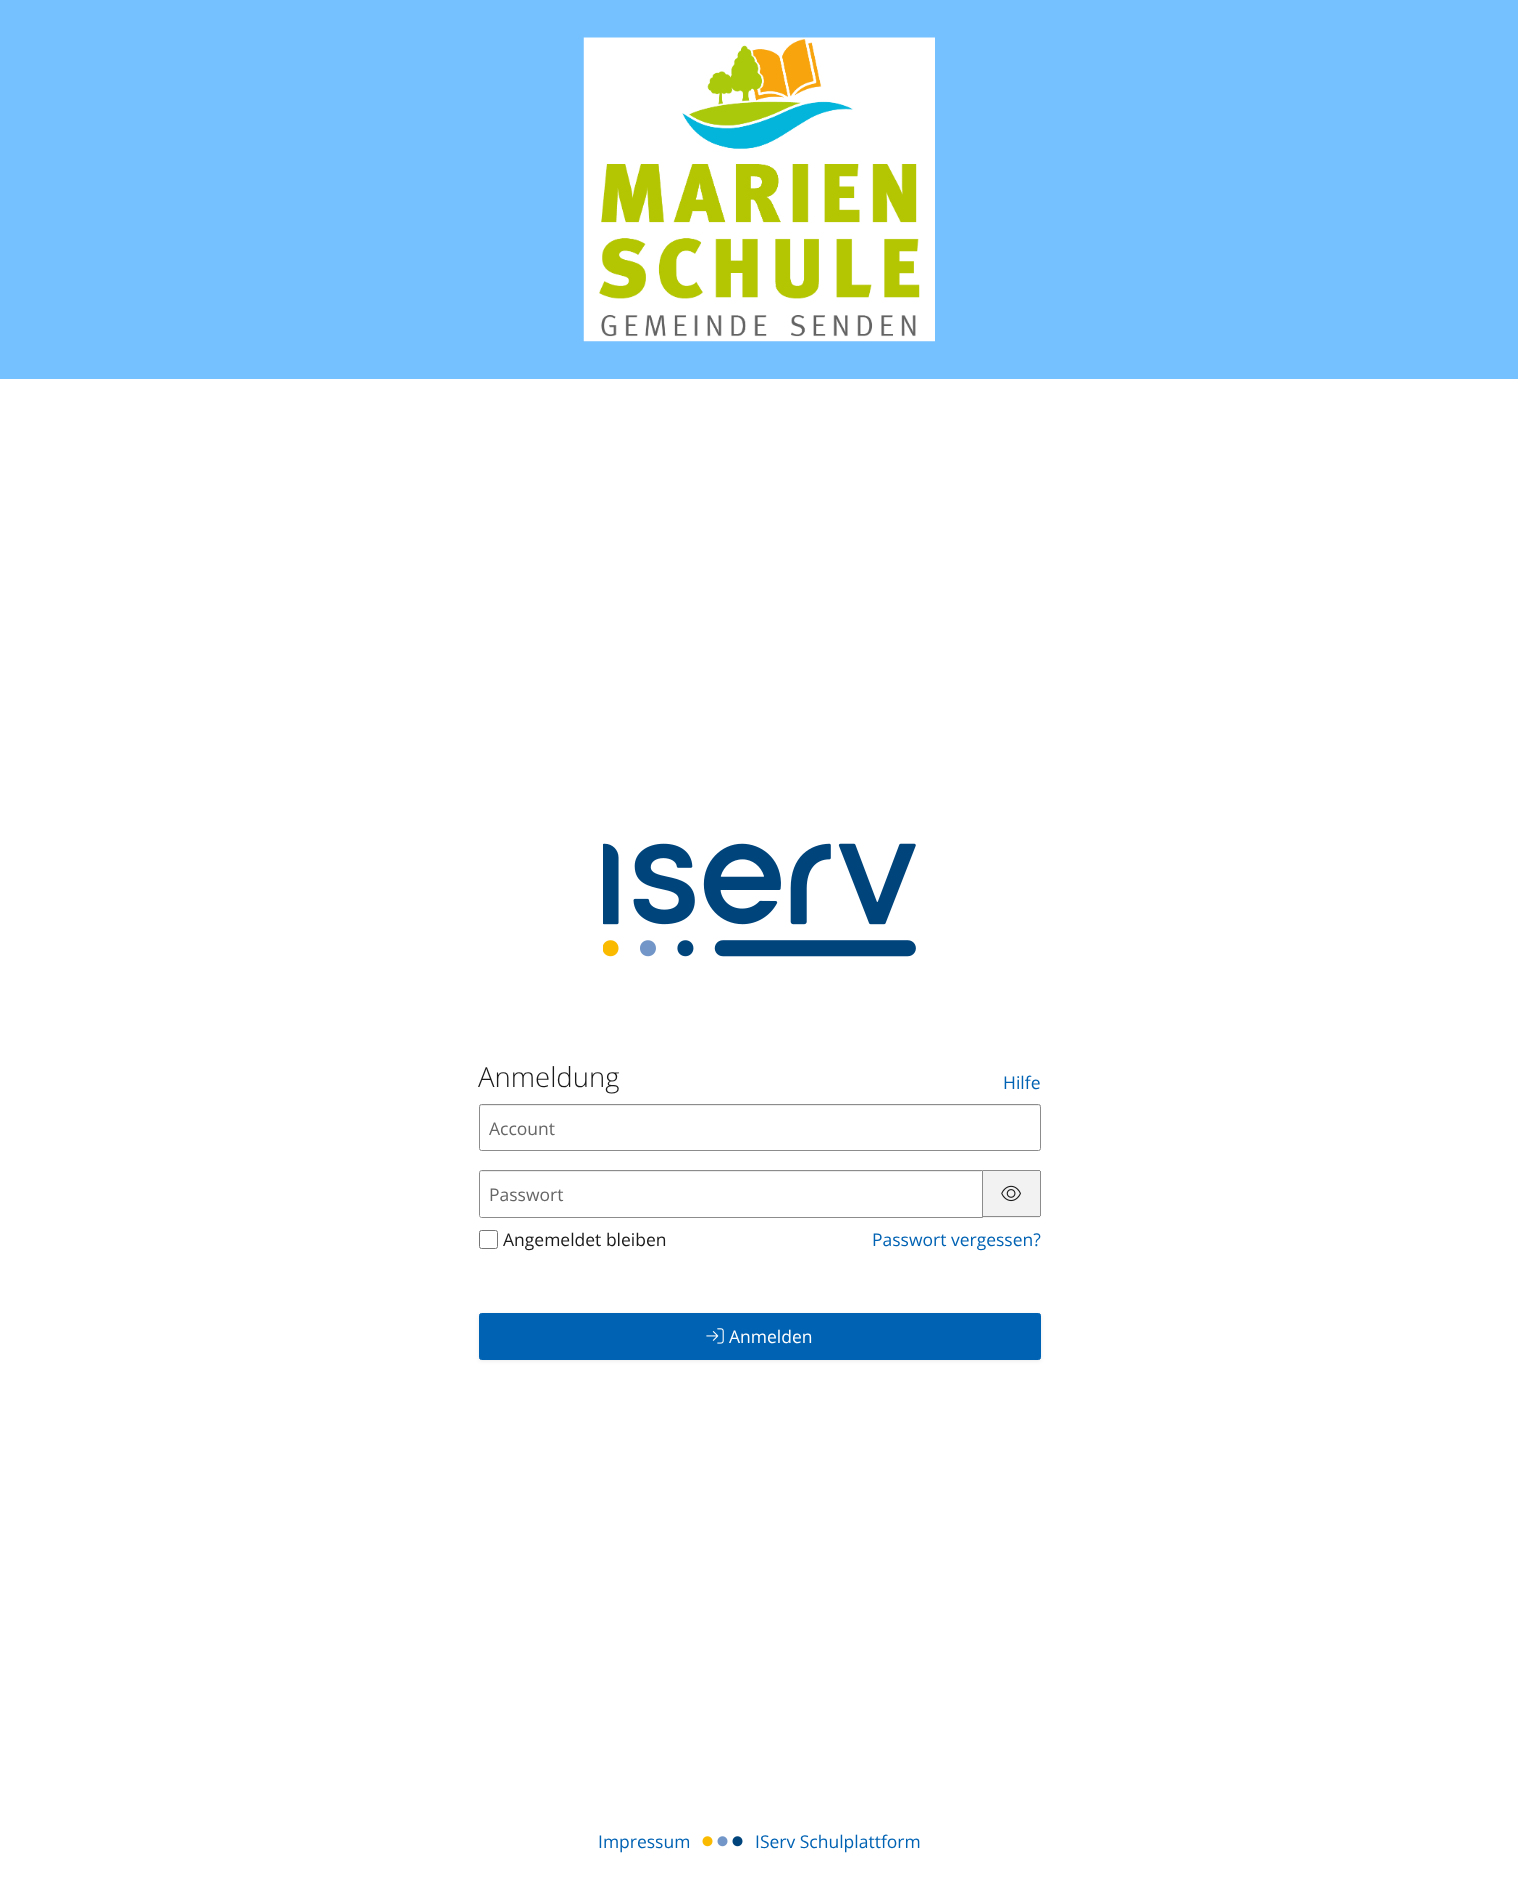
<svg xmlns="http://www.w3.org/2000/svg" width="1518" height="1893">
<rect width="100%" height="100%" fill="#fff"/>
<rect width="1518" height="379" fill="#75c1ff"/>
<image x="583" y="37" width="352" height="305" href="media/1.png"/>
<image x="603" y="843" width="313" height="114" href="media/2.png"/>
<text x="478" y="1087" style="font-family:Open Sans;font-size:27.5px;font-weight:300;fill:#1a1a1a">Anmeldung</text>
<text x="1003" y="1089" style="font-family:Open Sans;font-size:17.5px;fill:#0062b3">Hilfe</text>
<path d="M481 1106h558l1 2v-3h-1h-558c-1 0-1 2-1 3z" fill="#ececec"/>
<rect x="479.5" y="1104.5" width="561" height="46" rx="2" fill="none" stroke="#8c8c8c"/>
<text x="489" y="1135" style="font-family:Open Sans;font-size:17.5px;fill:#666">Account</text>
<path d="M481 1172h500v-1h-500l-1 1v1z" fill="#ececec"/>
<path d="M481.5 1170.5h501v47h-501c-1 0-2-1-2-2v-43c0-1 1-2 2-2z" fill="none" stroke="#8c8c8c"/>
<text x="489" y="1201" style="font-family:Open Sans;font-size:17.5px;fill:#666">Passwort</text>
<path d="M983 1170h55.5c1.5 0 2.5 1 2.5 2.5v43c0 1.5-1 2.5-2.5 2.5h-55.5z" fill="#f2f2f2"/>
<rect x="983" y="1170" width="57" height="1" fill="#8c8c8c"/>
<rect x="1040" y="1171" width="1" height="45" fill="#8c8c8c"/>
<rect x="983" y="1216" width="57" height="1" fill="#8c8c8c"/>
<image x="1001" y="1185" width="20" height="17" href="media/3.png"/>
<rect x="479.5" y="1230.5" width="18" height="18" rx="2" fill="none" stroke="#767676"/>
<text x="503" y="1246" style="font-family:Open Sans;font-size:17.5px;fill:#1a1a1a">Angemeldet bleiben</text>
<text x="872" y="1246" style="font-family:Open Sans;font-size:17.5px;fill:#0062b3">Passwort vergessen?</text>
<rect x="479" y="1314" width="562" height="47" rx="2.5" fill="#00000014" filter="blur(2px)"/>
<rect x="479.5" y="1313.5" width="561" height="46" rx="2" fill="#0062b3" stroke="#0062b3"/>
<image x="706" y="1328" width="18" height="16" href="media/4.png"/>
<text x="729" y="1343" style="font-family:Open Sans;font-size:17.5px;fill:#fff">Anmelden</text>
<text x="598" y="1848" style="font-family:Open Sans;font-size:17.5px;fill:#0062b3">Impressum</text>
<image x="702" y="1836" width="11" height="11" href="media/5.png"/>
<image x="717" y="1836" width="11" height="11" href="media/6.png"/>
<image x="732" y="1836" width="11" height="11" href="media/7.png"/>
<text x="755" y="1848" style="font-family:Open Sans;font-size:17.5px;fill:#0062b3">IServ Schulplattform</text>
</svg>
